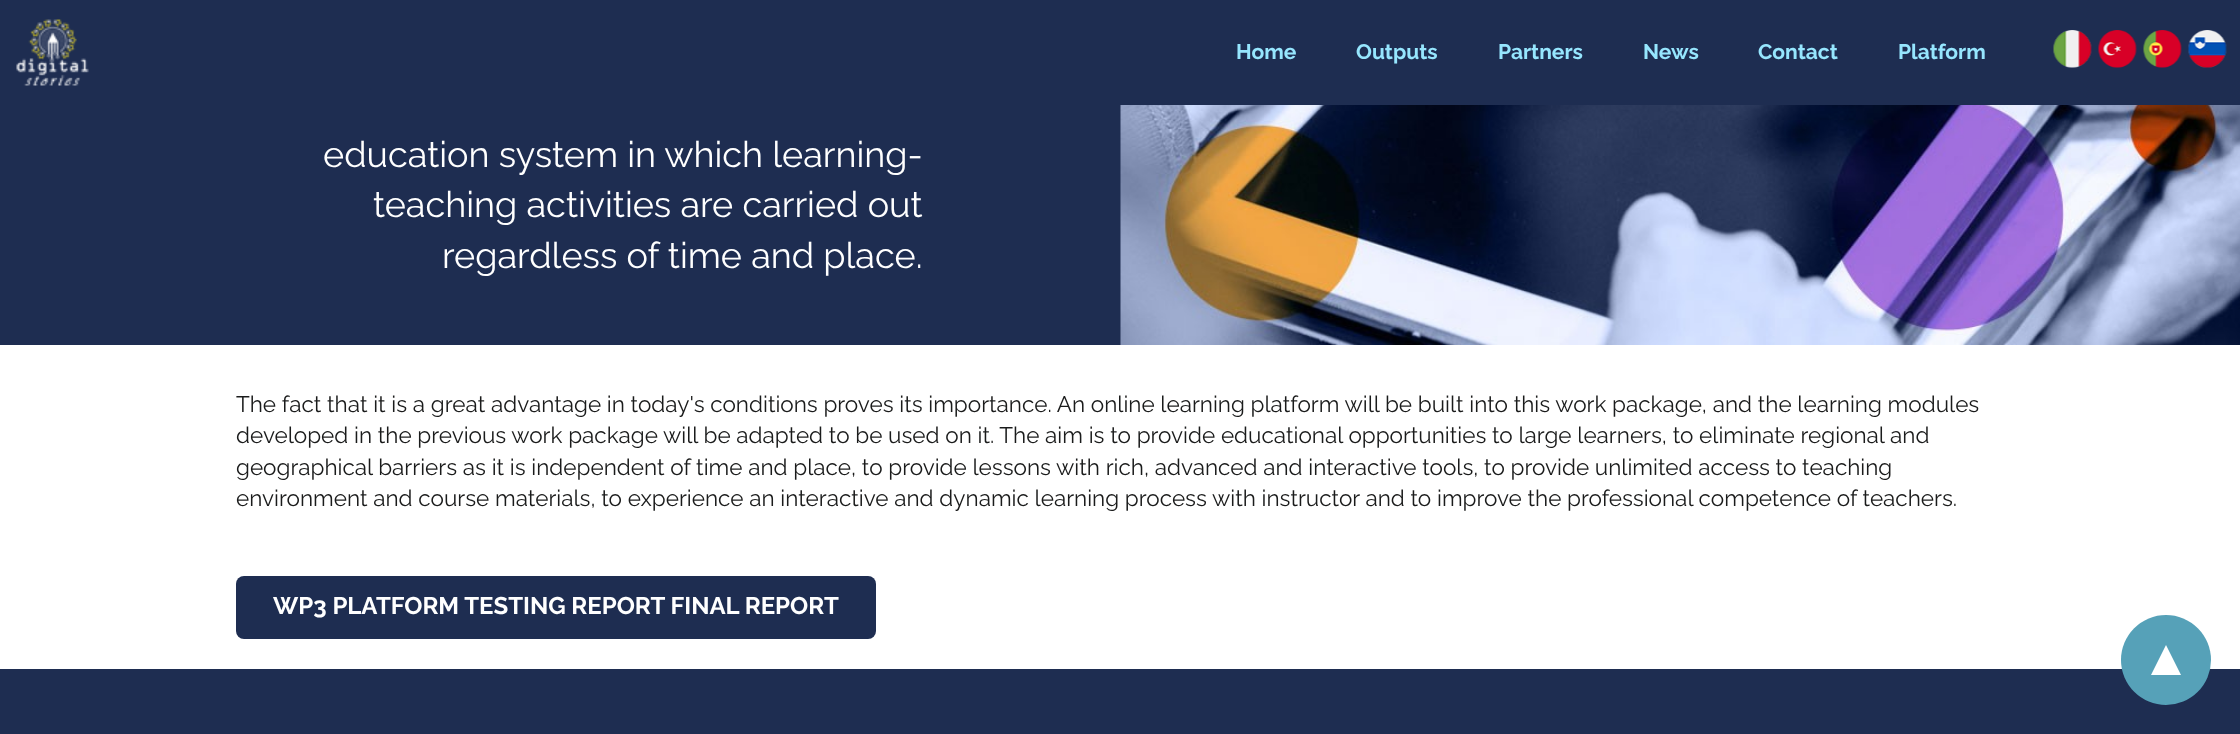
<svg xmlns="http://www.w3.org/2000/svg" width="2240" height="734">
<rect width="100%" height="100%" fill="#fff"/>
<rect width="2240" height="105" fill="#1e2d51"/>
<image x="16" y="19" width="73" height="67" href="media/1.png"/>
<text x="1236" y="59" style="font-family:Raleway;font-size:21px;font-weight:bold;fill:#96e6fe">Home</text>
<text x="1356" y="59" style="font-family:Raleway;font-size:21px;font-weight:bold;fill:#96e6fe">Outputs</text>
<text x="1498" y="59" style="font-family:Raleway;font-size:21px;font-weight:bold;fill:#96e6fe">Partners</text>
<text x="1643" y="59" style="font-family:Raleway;font-size:21px;font-weight:bold;fill:#96e6fe">News</text>
<text x="1758" y="59" style="font-family:Raleway;font-size:21px;font-weight:bold;fill:#96e6fe">Contact</text>
<text x="1898" y="59" style="font-family:Raleway;font-size:21px;font-weight:bold;fill:#96e6fe">Platform</text>
<image x="2053" y="30" width="39" height="38" href="media/2.png"/>
<image x="2098" y="30" width="39" height="38" href="media/3.png"/>
<image x="2143" y="30" width="39" height="38" href="media/4.png"/>
<image x="2188" y="30" width="39" height="38" href="media/5.png"/>
<rect y="105" width="1121" height="240" fill="#1e2d51"/>
<text x="323" y="167" style="font-family:Raleway;font-size:36px;fill:#fff">education system in which learning-</text>
<text x="373" y="217" style="font-family:Raleway;font-size:36px;fill:#fff">teaching activities are carried out</text>
<text x="442" y="268" style="font-family:Raleway;font-size:36px;fill:#fff">regardless of time and place.</text>
<image x="1120" y="105" width="1120" height="240" href="media/6.png"/>
<text x="236" y="412" style="font-family:Raleway;font-size:22.5px;fill:#1a1b1b">The fact that it is a great advantage in today's conditions proves its importance. An online learning platform will be built into this work package, and the learning modules</text>
<text x="236" y="443" style="font-family:Raleway;font-size:22.5px;fill:#1a1b1b">developed in the previous work package will be adapted to be used on it. The aim is to provide educational opportunities to large learners, to eliminate regional and</text>
<text x="236" y="475" style="font-family:Raleway;font-size:22.5px;fill:#1a1b1b">geographical barriers as it is independent of time and place, to provide lessons with rich, advanced and interactive tools, to provide unlimited access to teaching</text>
<text x="236" y="506" style="font-family:Raleway;font-size:22.5px;fill:#1a1b1b">environment and course materials, to experience an interactive and dynamic learning process with instructor and to improve the professional competence of teachers.</text>
<rect x="236" y="576" width="640" height="63" rx="8" fill="#1e2d51"/>
<text x="273" y="614" style="font-family:Raleway;font-size:24px;font-weight:bold;fill:#fff">WP3 PLATFORM TESTING REPORT FINAL REPORT</text>
<rect y="669" width="2240" height="65" fill="#1e2d51"/>
<circle cx="2166" cy="660" r="45" fill="#56a1b8"/>
<path d="M2181 675h-30l15-30z" fill="#fff"/>
</svg>
